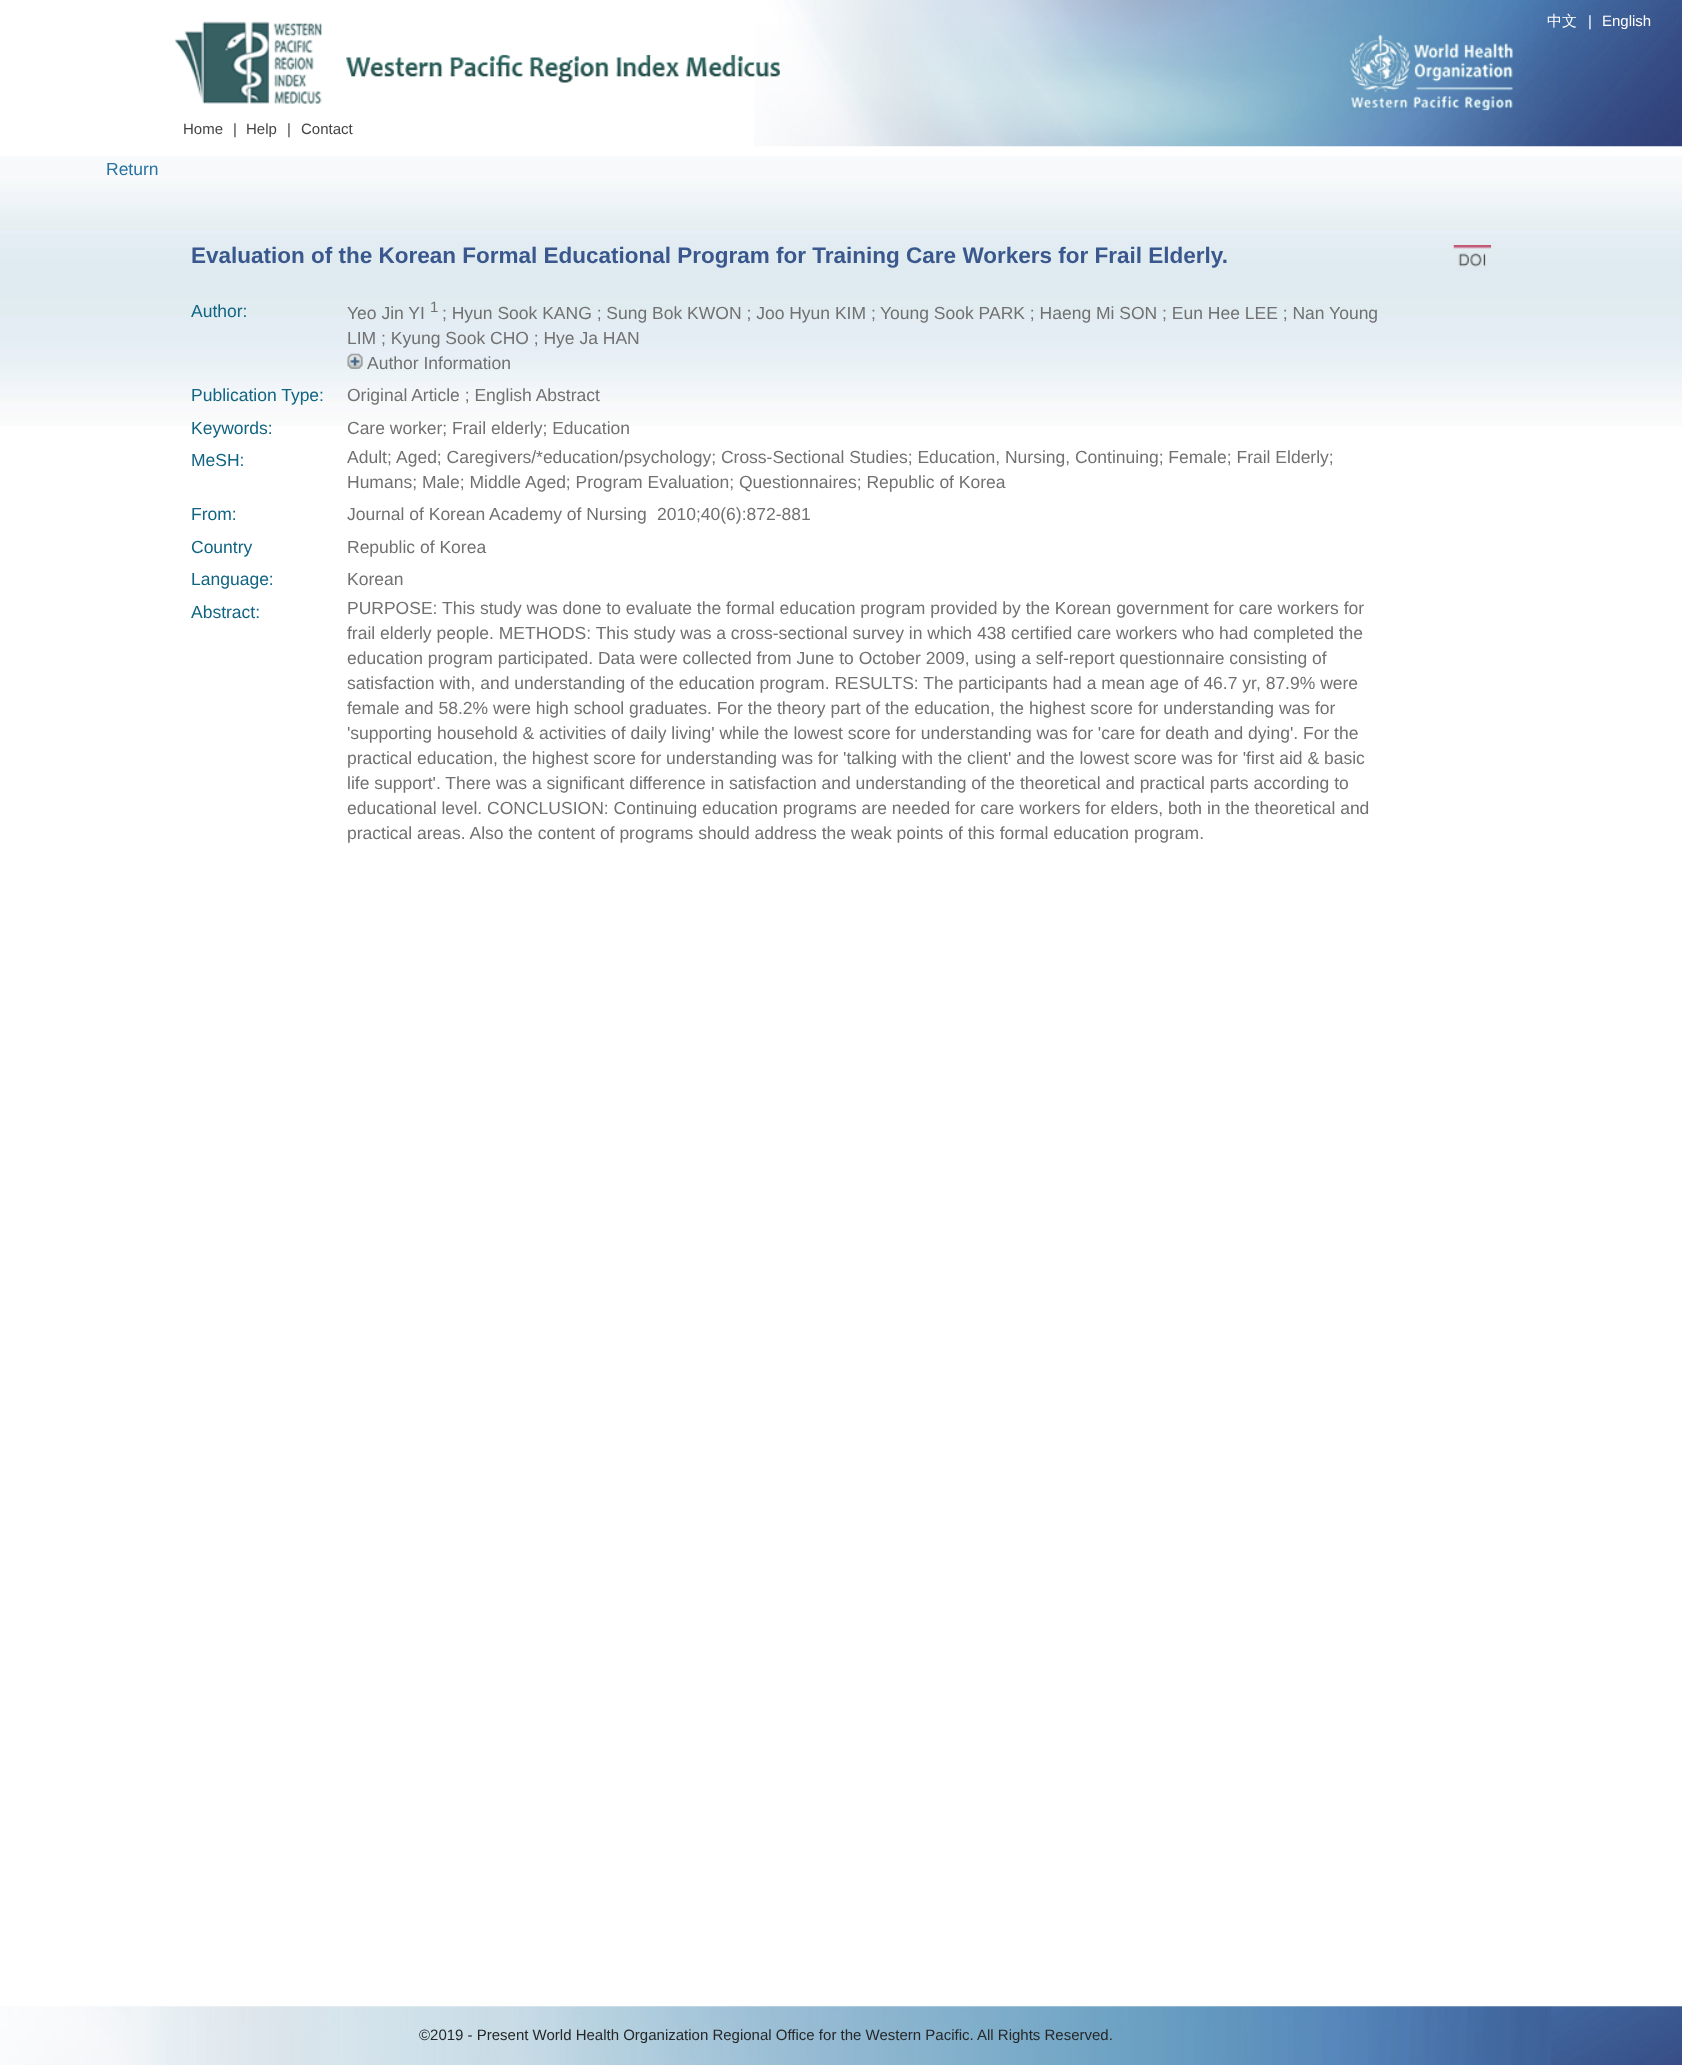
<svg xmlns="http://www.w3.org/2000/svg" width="1682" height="2072">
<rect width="100%" height="100%" fill="#fff"/>
<image x="754" y="0" width="928" height="147" href="media/1.png"/>
<text x="1547" y="26" style="font-family:WenQuanYi Zen Hei;font-size:15px;font-weight:500;fill:#fff">中文</text>
<text x="1588" y="26" style="font-family:Liberation Sans;font-size:15px;fill:#fff">|</text>
<text x="1602" y="26" style="font-family:Liberation Sans;font-size:15px;fill:#fff">English</text>
<image x="1349" y="34" width="164" height="77" href="media/2.png"/>
<image x="174" y="21" width="606" height="83" href="media/3.png"/>
<text x="183" y="134" style="font-family:Liberation Sans;font-size:15px;fill:#444">Home</text>
<text x="233" y="134" style="font-family:Liberation Sans;font-size:15px;fill:#444">|</text>
<text x="246" y="134" style="font-family:Liberation Sans;font-size:15px;fill:#444">Help</text>
<text x="287" y="134" style="font-family:Liberation Sans;font-size:15px;fill:#444">|</text>
<text x="301" y="134" style="font-family:Liberation Sans;font-size:15px;fill:#444">Contact</text>
<image x="0" y="156" width="1682" height="270" href="media/4.png"/>
<text x="106" y="175" style="font-family:Liberation Sans;font-size:17.5px;fill:#2773a2">Return</text>
<text x="191" y="263" style="font-family:Liberation Sans;font-size:22.5px;font-weight:bold;fill:#3a588d">Evaluation of the Korean Formal Educational Program for Training Care Workers for Frail Elderly.</text>
<image x="1453" y="245" width="39" height="22" href="media/5.png"/>
<text x="191" y="317" style="font-family:Liberation Sans;font-size:17.5px;fill:#116482">Author:</text>
<text x="347" y="319" style="font-family:Liberation Sans;font-size:17.5px;fill:#717171">Yeo Jin YI</text>
<text x="430" y="312" style="font-family:Liberation Sans;font-size:15px;fill:#717171">1</text>
<text x="442" y="319" style="font-family:Liberation Sans;font-size:17.5px;fill:#717171">; Hyun Sook KANG ; Sung Bok KWON ; Joo Hyun KIM ;</text>
<text x="880" y="319" style="font-family:Liberation Sans;font-size:17.5px;fill:#717171">Young Sook PARK ; Haeng Mi SON ; Eun Hee LEE ; Nan Young</text>
<text x="347" y="344" style="font-family:Liberation Sans;font-size:17.5px;fill:#717171">LIM ; Kyung Sook CHO ; Hye Ja HAN</text>
<image x="347" y="353" width="16" height="16" href="media/6.png"/>
<text x="367" y="369" style="font-family:Liberation Sans;font-size:17.5px;fill:#717171">Author Information</text>
<text x="191" y="401" style="font-family:Liberation Sans;font-size:17.5px;fill:#116482">Publication Type:</text>
<text x="347" y="401" style="font-family:Liberation Sans;font-size:17.5px;fill:#717171">Original Article ; English Abstract</text>
<text x="191" y="434" style="font-family:Liberation Sans;font-size:17.5px;fill:#116482">Keywords:</text>
<text x="347" y="434" style="font-family:Liberation Sans;font-size:17.5px;fill:#717171">Care worker; Frail elderly; Education</text>
<text x="191" y="466" style="font-family:Liberation Sans;font-size:17.5px;fill:#116482">MeSH:</text>
<text x="347" y="463" style="font-family:Liberation Sans;font-size:17.5px;fill:#717171">Adult;</text>
<text x="396" y="463" style="font-family:Liberation Sans;font-size:17.5px;fill:#717171">Aged; Caregivers/*education/psychology; Cross-Sectional Studies; Education, Nursing, Continuing; Female; Frail Elderly;</text>
<text x="347" y="488" style="font-family:Liberation Sans;font-size:17.5px;fill:#717171">Humans; Male; Middle Aged; Program Evaluation; Questionnaires; Republic of Korea</text>
<text x="191" y="520" style="font-family:Liberation Sans;font-size:17.5px;fill:#116482">From:</text>
<text x="347" y="520" style="font-family:Liberation Sans;font-size:17.5px;fill:#717171">Journal of Korean Academy of Nursing</text>
<text x="657" y="520" style="font-family:Liberation Sans;font-size:17.5px;fill:#717171">2010;40(6):872-881</text>
<text x="191" y="553" style="font-family:Liberation Sans;font-size:17.5px;fill:#116482">Country</text>
<text x="347" y="553" style="font-family:Liberation Sans;font-size:17.5px;fill:#717171">Republic of Korea</text>
<text x="191" y="585" style="font-family:Liberation Sans;font-size:17.5px;fill:#116482">Language:</text>
<text x="347" y="585" style="font-family:Liberation Sans;font-size:17.5px;fill:#717171">Korean</text>
<text x="191" y="618" style="font-family:Liberation Sans;font-size:17.5px;fill:#116482">Abstract:</text>
<text x="347" y="614" style="font-family:Liberation Sans;font-size:17.5px;fill:#717171">PURPOSE: This study was done to evaluate the formal education program provided by the Korean government for care workers for</text>
<text x="347" y="639" style="font-family:Liberation Sans;font-size:17.5px;fill:#717171">frail elderly people. METHODS: This study was a cross-sectional survey in which 438 certified care workers who had completed the</text>
<text x="347" y="664" style="font-family:Liberation Sans;font-size:17.5px;fill:#717171">education program participated. Data were collected from June to October 2009, using a self-report questionnaire consisting of</text>
<text x="347" y="689" style="font-family:Liberation Sans;font-size:17.5px;fill:#717171">satisfaction with, and understanding of the education program. RESULTS: The participants had a mean age of 46.7 yr, 87.9% were</text>
<text x="347" y="714" style="font-family:Liberation Sans;font-size:17.5px;fill:#717171">female and 58.2% were high school graduates. For the theory part of the education, the highest score for understanding was for</text>
<text x="347" y="739" style="font-family:Liberation Sans;font-size:17.5px;fill:#717171">'supporting household &amp; activities of daily living' while the lowest score for understanding was for 'care for death and dying'. For the</text>
<text x="347" y="764" style="font-family:Liberation Sans;font-size:17.5px;fill:#717171">practical education, the highest score for understanding was for 'talking with the client' and the lowest score was for 'first aid &amp; basic</text>
<text x="347" y="789" style="font-family:Liberation Sans;font-size:17.5px;fill:#717171">life support'. There was a significant difference in satisfaction and understanding of the theoretical and practical parts according to</text>
<text x="347" y="814" style="font-family:Liberation Sans;font-size:17.5px;fill:#717171">educational level. CONCLUSION: Continuing education programs are needed for care workers for elders, both in the theoretical and</text>
<text x="347" y="839" style="font-family:Liberation Sans;font-size:17.5px;fill:#717171">practical areas. Also the content of programs should address the weak points of this formal education program.</text>
<image x="0" y="2006" width="1682" height="59" href="media/7.png"/>
<text x="419" y="2040" style="font-family:Liberation Sans;font-size:15px;fill:#252728">©2019 - Present World Health Organization Regional Office for the Western Pacific. All Rights Reserved.</text>
</svg>
